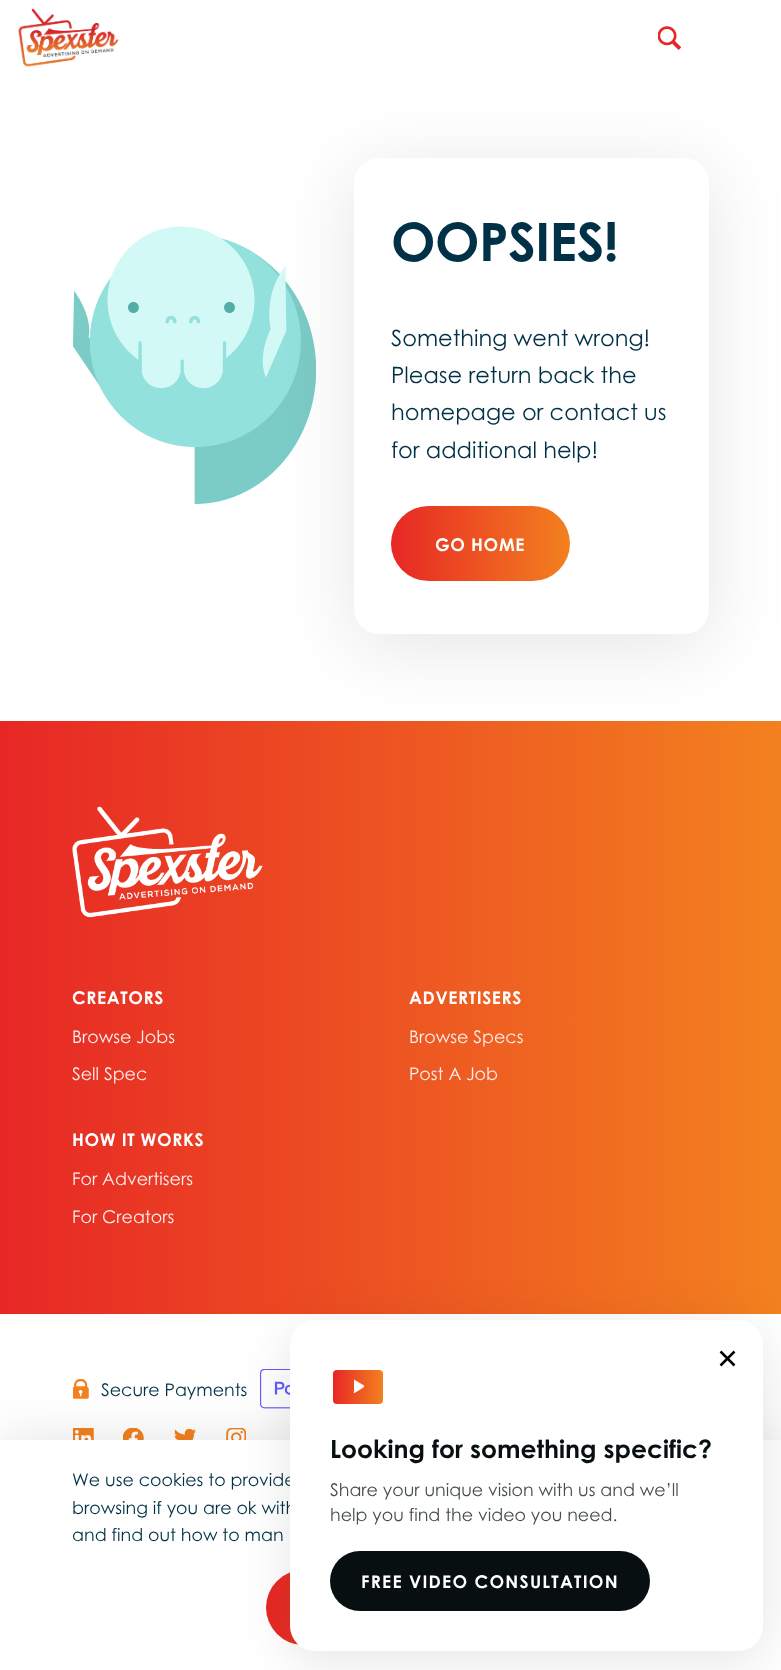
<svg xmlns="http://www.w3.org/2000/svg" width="781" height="1670">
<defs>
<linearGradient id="g1" gradientUnits="userSpaceOnUse" x1="781" y1="1253" x2="0" y2="1253"><stop offset="0" stop-color="#f3811f"/><stop offset="1" stop-color="#e72725"/></linearGradient>
<linearGradient id="g2" gradientUnits="userSpaceOnUse" x1="570" y1="544" x2="391" y2="544"><stop offset="0" stop-color="#f3811f"/><stop offset="1" stop-color="#e72725"/></linearGradient>
<linearGradient id="g3" gradientUnits="userSpaceOnUse" x1="515" y1="1608" x2="266" y2="1608"><stop offset="0" stop-color="#f3811f"/><stop offset="1" stop-color="#e72725"/></linearGradient>
<linearGradient id="g4" gradientUnits="userSpaceOnUse" x1="383" y1="1370" x2="333" y2="1370"><stop offset="0" stop-color="#f3811f"/><stop offset="1" stop-color="#e72725"/></linearGradient>
</defs>
<rect width="100%" height="100%" fill="#fff"/>
<image x="18" y="8" width="101" height="59" href="media/1.png"/>
<image x="658" y="26" width="23" height="24" href="media/2.png"/>
<image x="73" y="226" width="243" height="278" href="media/3.png"/>
<rect y="721" width="781" height="593" fill="url(#g1)"/>
<rect x="354" y="170" width="355" height="476" rx="25" fill="#0000001a" filter="blur(37.5px)"/>
<rect x="354" y="158" width="355" height="476" rx="25" fill="#fff"/>
<text x="391" y="261" style="font-family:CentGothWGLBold;font-size:53px;font-weight:bold;letter-spacing:-0.5px;fill:#003147">OOPSIES!</text>
<text x="391" y="346" style="font-family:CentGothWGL;font-size:22.5px;fill:#003147">Something went wrong!</text>
<text x="391" y="383" style="font-family:CentGothWGL;font-size:22.5px;fill:#003147">Please return back the</text>
<text x="391" y="420" style="font-family:CentGothWGL;font-size:22.5px;fill:#003147">homepage or contact us</text>
<text x="391" y="458" style="font-family:CentGothWGL;font-size:22.5px;fill:#003147">for additional help!</text>
<rect x="391" y="506" width="179" height="75" rx="37.5" fill="url(#g2)"/>
<text x="435" y="551" style="font-family:CentGothWGLBold;font-size:17.5px;font-weight:bold;letter-spacing:0.6px;fill:#fff">GO HOME</text>
<image x="72" y="806" width="191" height="112" href="media/4.png"/>
<text x="72" y="1004" style="font-family:CentGothWGLBold;font-size:17.5px;font-weight:bold;letter-spacing:0.6px;fill:#fff">CREATORS</text>
<text x="72" y="1043" style="font-family:CentGothWGL;font-size:17.5px;fill:#fdefed">Browse Jobs</text>
<text x="72" y="1080" style="font-family:CentGothWGL;font-size:17.5px;fill:#fdefed">Sell Spec</text>
<text x="409" y="1004" style="font-family:CentGothWGLBold;font-size:17.5px;font-weight:bold;letter-spacing:0.6px;fill:#fff">ADVERTISERS</text>
<text x="409" y="1043" style="font-family:CentGothWGL;font-size:17.5px;fill:#fdefed">Browse Specs</text>
<text x="409" y="1080" style="font-family:CentGothWGL;font-size:17.5px;fill:#fdefed">Post A Job</text>
<text x="72" y="1146" style="font-family:CentGothWGLBold;font-size:17.5px;font-weight:bold;letter-spacing:0.6px;fill:#fff">HOW IT WORKS</text>
<text x="72" y="1185" style="font-family:CentGothWGL;font-size:17.5px;fill:#fdefed">For Advertisers</text>
<text x="72" y="1223" style="font-family:CentGothWGL;font-size:17.5px;fill:#fdefed">For Creators</text>
<image x="73" y="1379" width="16" height="20" href="media/5.png"/>
<text x="101" y="1396" style="font-family:CentGothWGL;font-size:17.5px;fill:#003147">Secure Payments</text>
<image x="260" y="1369" width="30" height="40" href="media/6.png"/>
<image x="73" y="1428" width="21" height="12" href="media/7.png"/>
<image x="123" y="1428" width="21" height="12" href="media/8.png"/>
<image x="174" y="1429" width="22" height="11" href="media/9.png"/>
<image x="226" y="1428" width="20" height="12" href="media/10.png"/>
<rect y="1438" width="781" height="230" fill="#0000001a" filter="blur(25px)"/>
<rect y="1440" width="781" height="230" fill="#fff"/>
<text x="72" y="1486" style="font-family:CentGothWGL;font-size:17.5px;fill:#003147">We use cookies to provide</text>
<text x="72" y="1514" style="font-family:CentGothWGL;font-size:17.5px;fill:#003147">browsing if you are ok with</text>
<text x="72" y="1541" style="font-family:CentGothWGL;font-size:17.5px;fill:#003147">and find out how to man</text>
<rect x="266" y="1570" width="249" height="75" rx="37.5" fill="url(#g3)"/>
<rect x="290" y="1330" width="473" height="331" rx="25" fill="#0000001a" filter="blur(25px)"/>
<rect x="290" y="1320" width="473" height="331" rx="25" fill="#fff"/>
<path d="M720.5 1351.5l14 14m0-14l-14 14" fill="none" stroke="#000" stroke-width="2.5"/>
<rect x="333" y="1370" width="50" height="34" rx="4" fill="url(#g4)"/>
<path d="M364 1385.5l-10-6v11c0 1-.5 2 0 2.5h.5l5-3c1-.5 6-3.5 4.5-4.5z" fill="#fff"/>
<text x="330" y="1458" style="font-family:CentGothWGLBold;font-size:25px;font-weight:bold;fill:#080f11">Looking for something specific?</text>
<text x="330" y="1496" style="font-family:CentGothWGL;font-size:17.5px;fill:#444d51">Share your unique vision with us and we’ll</text>
<text x="330" y="1521" style="font-family:CentGothWGL;font-size:17.5px;fill:#444d51">help you find the video you need.</text>
<rect x="330" y="1551" width="320" height="60" rx="30" fill="#080f11"/>
<text x="361" y="1588" style="font-family:CentGothWGLBold;font-size:17.5px;font-weight:bold;letter-spacing:1.25px;fill:#fff">FREE VIDEO CONSULTATION</text>
</svg>
